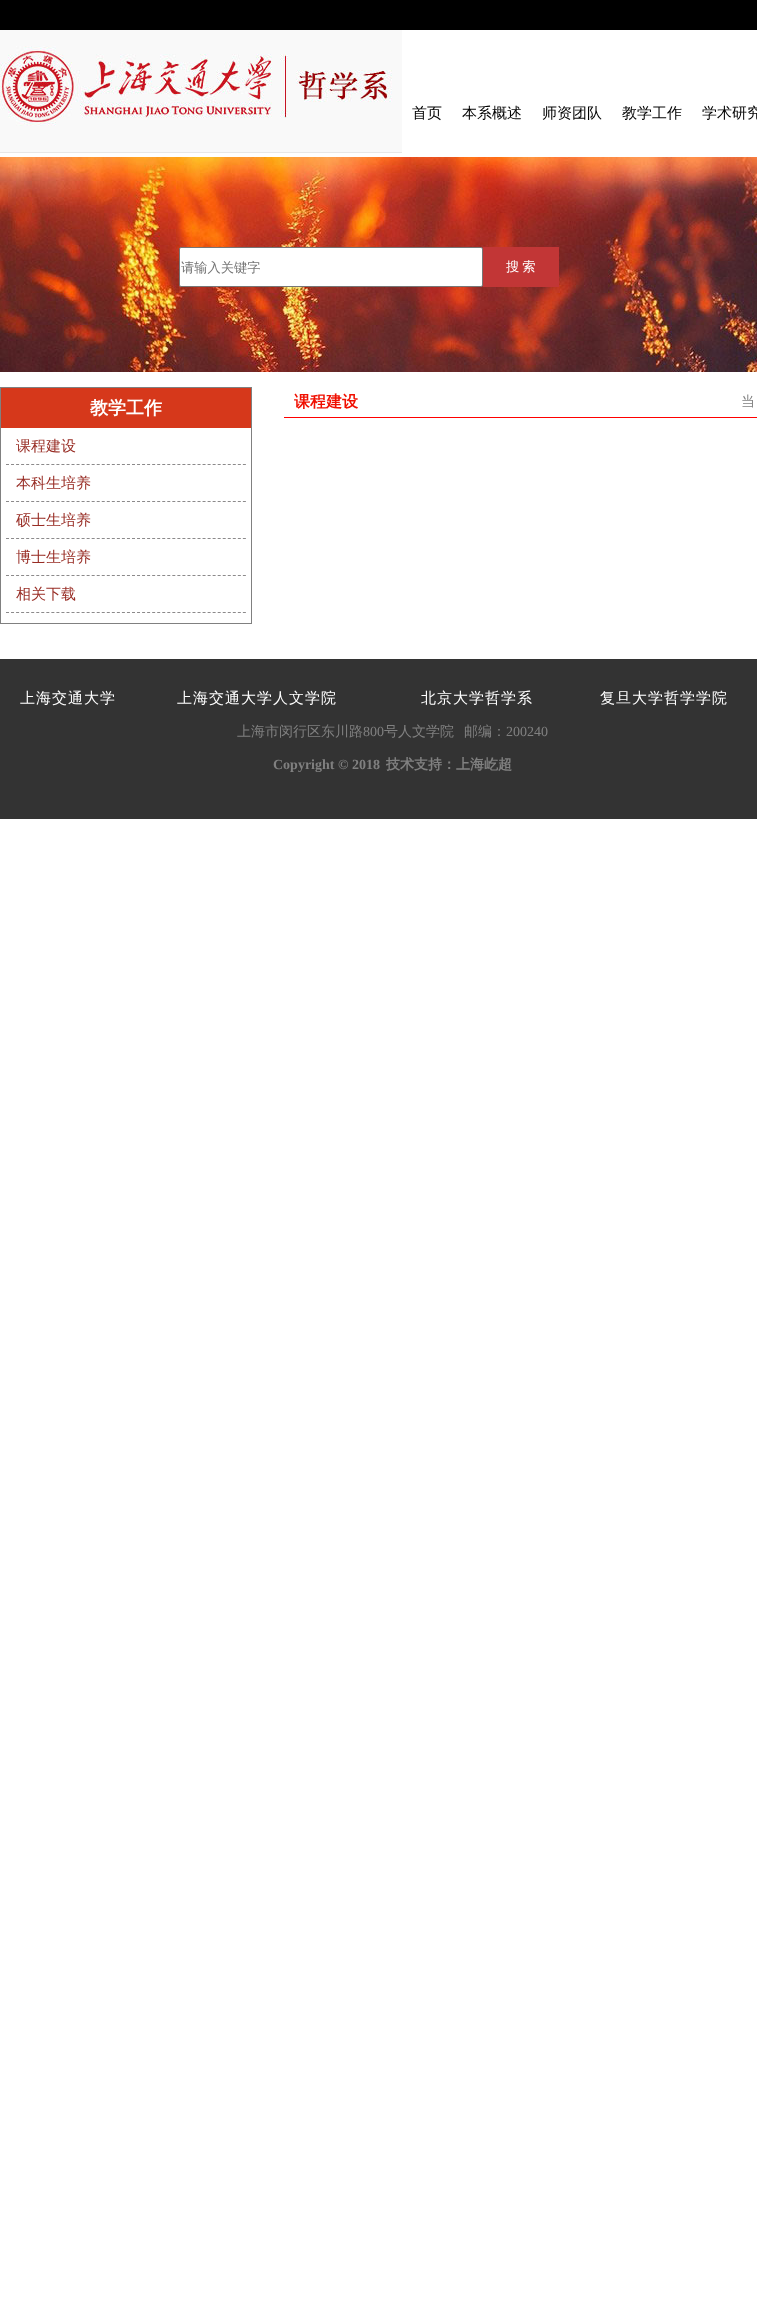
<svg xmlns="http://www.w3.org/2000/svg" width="757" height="2302">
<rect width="100%" height="100%" fill="#fff"/>
<rect width="757" height="30" fill="#000"/>
<image x="0" y="30" width="402" height="123" href="media/1.png"/>
<text x="412" y="118" style="font-family:WenQuanYi Zen Hei;font-size:15px;font-weight:500;fill:#000">首页</text>
<text x="462" y="118" style="font-family:WenQuanYi Zen Hei;font-size:15px;font-weight:500;fill:#000">本系概述</text>
<text x="542" y="118" style="font-family:WenQuanYi Zen Hei;font-size:15px;font-weight:500;fill:#000">师资团队</text>
<text x="622" y="118" style="font-family:WenQuanYi Zen Hei;font-size:15px;font-weight:500;fill:#000">教学工作</text>
<text x="702" y="118" style="font-family:WenQuanYi Zen Hei;font-size:15px;font-weight:500;fill:#000">学术研究</text>
<image x="0" y="157" width="757" height="215" href="media/2.png"/>
<rect x="179.5" y="247.5" width="303" height="39" rx="1.5" fill="#fff" stroke="#767676"/>
<text x="181" y="272" style="font-family:WenQuanYi Zen Hei;font-size:13.25px;font-weight:500;fill:#757575">请输入关键字</text>
<rect x="483" y="247" width="76" height="40" fill="#c23636"/>
<text x="506" y="271" word-spacing="-1" style="font-family:WenQuanYi Zen Hei;font-size:13.25px;font-weight:500;fill:#fff">搜 索</text>
<rect x="0.5" y="387.5" width="251" height="236" fill="none" stroke="#808080"/>
<rect x="1" y="388" width="250" height="40" fill="#d6381b"/>
<text x="90" y="414" style="font-family:WenQuanYi Zen Hei;font-size:18px;font-weight:bold;fill:#fff">教学工作</text>
<path d="M6 464.5h240" fill="none" stroke="#8c8a8b" stroke-dasharray="3 2.04"/>
<text x="16" y="451" style="font-family:WenQuanYi Zen Hei;font-size:15px;font-weight:500;fill:#982d25">课程建设</text>
<path d="M6 501.5h240" fill="none" stroke="#8c8a8b" stroke-dasharray="3 2.04"/>
<text x="16" y="488" style="font-family:WenQuanYi Zen Hei;font-size:15px;font-weight:500;fill:#982d25">本科生培养</text>
<path d="M6 538.5h240" fill="none" stroke="#8c8a8b" stroke-dasharray="3 2.04"/>
<text x="16" y="525" style="font-family:WenQuanYi Zen Hei;font-size:15px;font-weight:500;fill:#982d25">硕士生培养</text>
<path d="M6 575.5h240" fill="none" stroke="#8c8a8b" stroke-dasharray="3 2.04"/>
<text x="16" y="562" style="font-family:WenQuanYi Zen Hei;font-size:15px;font-weight:500;fill:#982d25">博士生培养</text>
<path d="M6 612.5h240" fill="none" stroke="#8c8a8b" stroke-dasharray="3 2.04"/>
<text x="16" y="599" style="font-family:WenQuanYi Zen Hei;font-size:15px;font-weight:500;fill:#982d25">相关下载</text>
<rect x="284" y="417" width="473" height="1" fill="#f00"/>
<text x="294" y="407" style="font-family:WenQuanYi Zen Hei;font-size:16px;font-weight:bold;fill:#f00f00">课程建设</text>
<text x="741" y="406" style="font-family:WenQuanYi Zen Hei;font-size:14px;font-weight:500;fill:#808080">当</text>
<rect y="659" width="757" height="160" fill="#333"/>
<text x="20" y="703" style="font-family:WenQuanYi Zen Hei;font-size:15px;font-weight:500;letter-spacing:1px;fill:#fff">上海交通大学</text>
<text x="177" y="703" style="font-family:WenQuanYi Zen Hei;font-size:15px;font-weight:500;letter-spacing:1px;fill:#fff">上海交通大学人文学院</text>
<text x="421" y="703" style="font-family:WenQuanYi Zen Hei;font-size:15px;font-weight:500;letter-spacing:1px;fill:#fff">北京大学哲学系</text>
<text x="600" y="703" style="font-family:WenQuanYi Zen Hei;font-size:15px;font-weight:500;letter-spacing:1px;fill:#fff">复旦大学哲学学院</text>
<text x="237" y="736" style="font-family:WenQuanYi Zen Hei;font-size:14px;font-weight:500;fill:#808080">上海市闵行区东川路</text>
<text x="363" y="736" style="font-family:Liberation Serif;font-size:14px;fill:#808080">800</text>
<text x="384" y="736" style="font-family:WenQuanYi Zen Hei;font-size:14px;font-weight:500;fill:#808080">号人文学院</text>
<text x="464" y="736" style="font-family:WenQuanYi Zen Hei;font-size:14px;font-weight:500;fill:#808080">邮编：</text>
<text x="506" y="736" style="font-family:Liberation Serif;font-size:14px;fill:#808080">200240</text>
<text x="273" y="769" style="font-family:Liberation Serif;font-size:14px;font-weight:bold;fill:#808080">Copyright © 2018</text>
<text x="386" y="769" style="font-family:WenQuanYi Zen Hei;font-size:14px;font-weight:bold;fill:#808080">技术支持：上海屹超</text>
</svg>
